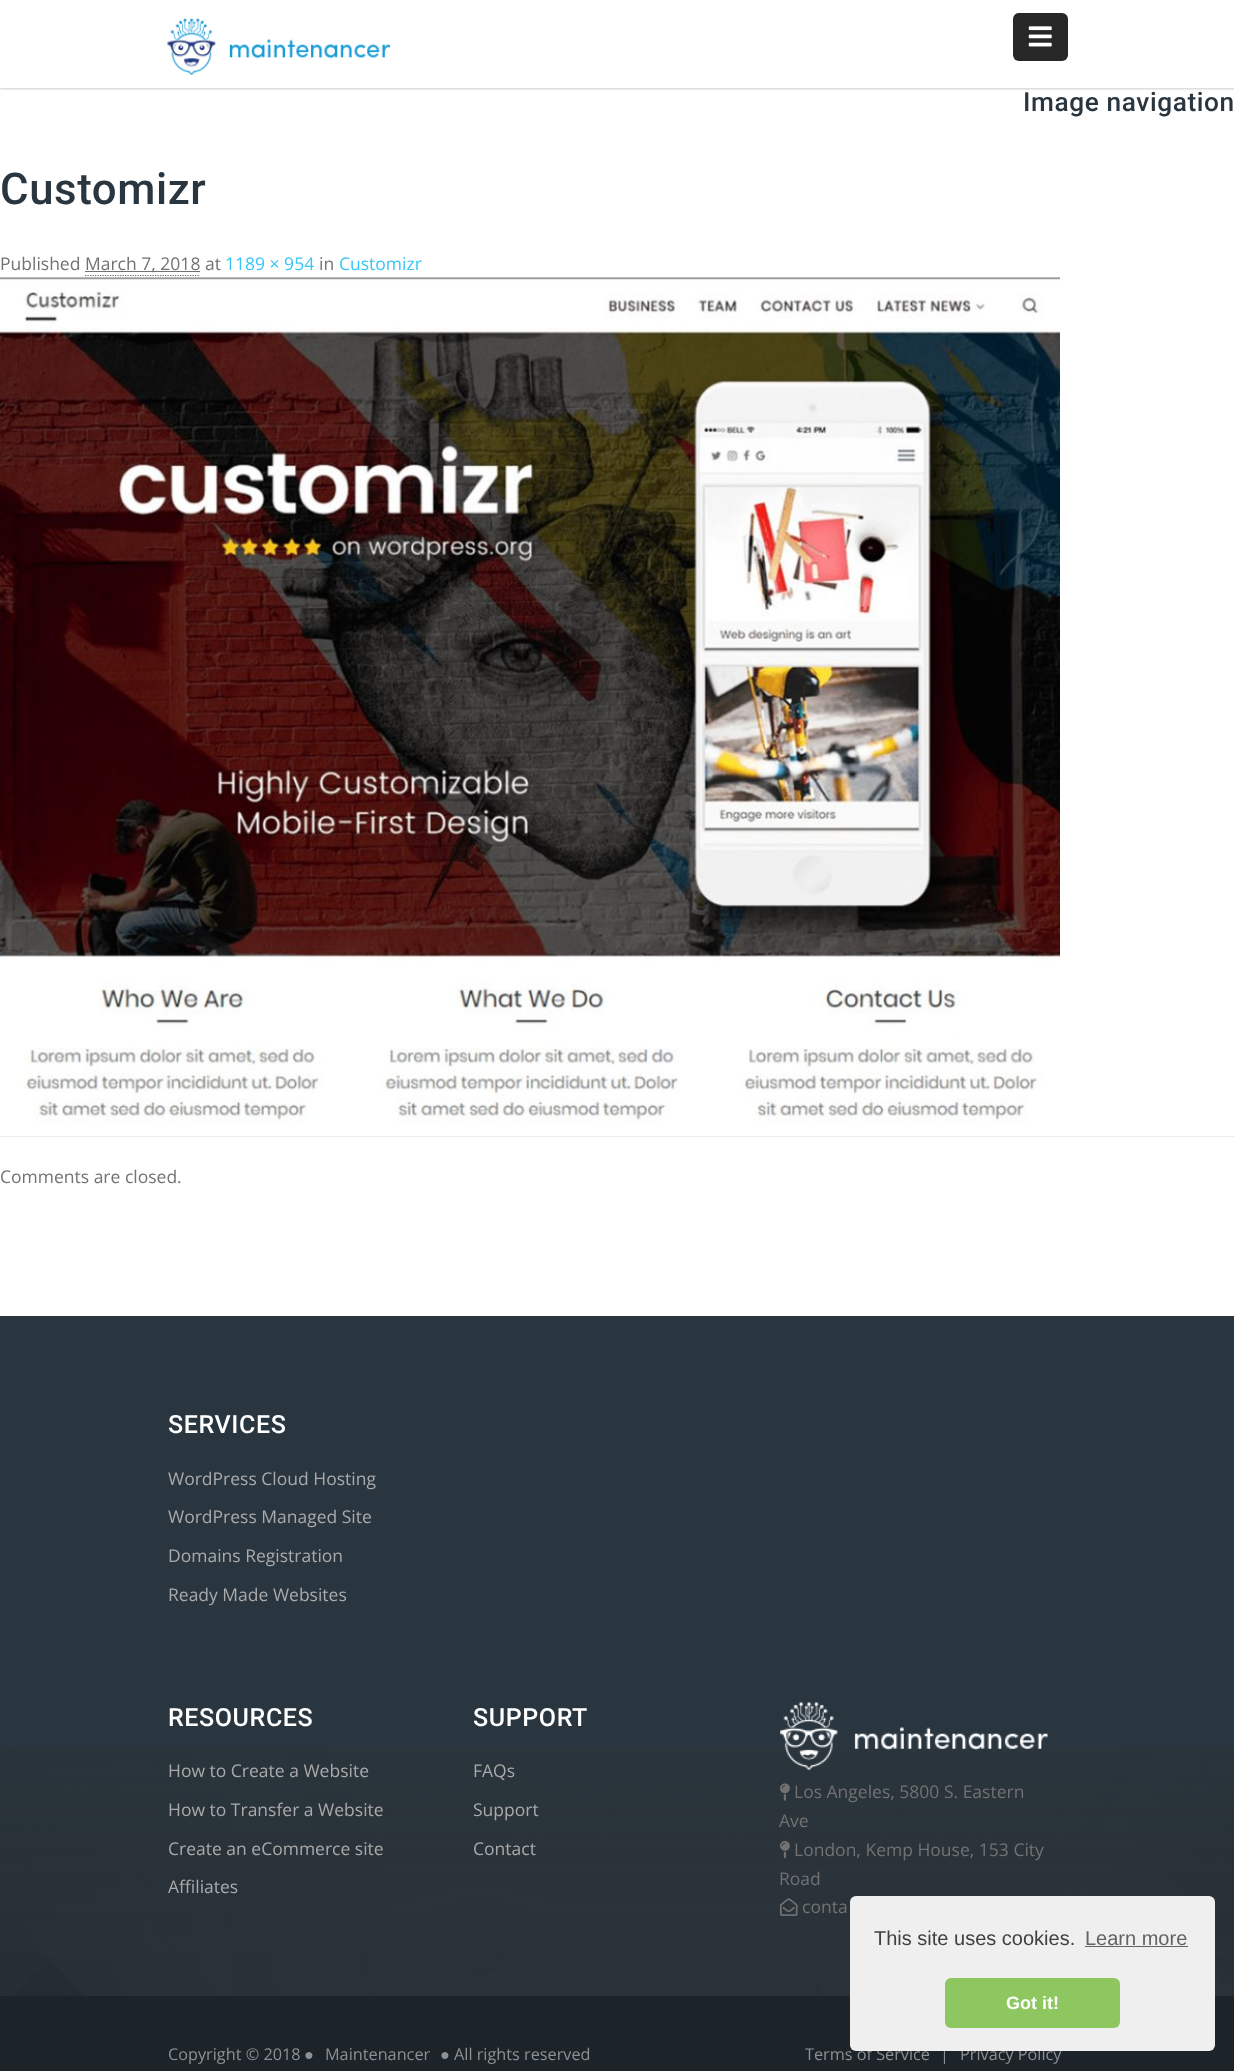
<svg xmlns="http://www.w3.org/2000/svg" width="1234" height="2071">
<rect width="100%" height="100%" fill="#fff"/>
<rect y="1" width="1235" height="88" fill="#00000033" filter="blur(1px)"/>
<rect width="1234" height="88" fill="#fff"/>
<image x="167" y="18" width="224" height="57" href="media/1.png"/>
<rect x="1013" y="13" width="55" height="48" rx="6" fill="#272727"/>
<image x="1028" y="26" width="24" height="21" href="media/2.png"/>
<text x="1023" y="111" style="font-family:Roboto;font-size:26.25px;font-weight:500;letter-spacing:0.6px;fill:#2a363f">Image navigation</text>
<text x="0" y="204" style="font-family:Roboto;font-size:43.75px;font-weight:500;letter-spacing:0.6px;fill:#2a363f">Customizr</text>
<text x="0" y="270" style="font-family:Open Sans;font-size:17.5px;fill:#727272">Published</text>
<rect x="85" y="271" width="115" height="1" fill="#727272"/>
<text x="85" y="270" style="font-family:Open Sans;font-size:17.5px;fill:#727272">March 7, 2018 at</text>
<path d="M85 275.5h115" fill="none" stroke="#666" stroke-width="1.2" stroke-dasharray="1.25 1.25"/>
<text x="225" y="270" style="font-family:Open Sans;font-size:17.5px;fill:#37c6f5">1189 × 954</text>
<text x="319" y="270" style="font-family:Open Sans;font-size:17.5px;fill:#727272">in</text>
<text x="339" y="270" style="font-family:Open Sans;font-size:17.5px;fill:#37c6f5">Customizr</text>
<image x="0" y="277" width="1060" height="846" href="media/3.png"/>
<rect y="1136" width="1234" height="1" fill="#eee"/>
<text x="0" y="1183" style="font-family:Open Sans;font-size:17.5px;fill:#727272">Comments are closed.</text>
<rect y="1316" width="1234" height="680" fill="#2a363f"/>
<image x="0" y="1748" width="1234" height="248" href="media/4.png"/>
<text x="168" y="1433" style="font-family:Roboto;font-size:25px;font-weight:500;letter-spacing:0.6px;fill:#fff">SERVICES</text>
<text x="168" y="1485" style="font-family:Open Sans;font-size:17.5px;fill:#aaa">WordPress Cloud Hosting</text>
<text x="168" y="1523" style="font-family:Open Sans;font-size:17.5px;fill:#aaa">WordPress Managed Site</text>
<text x="168" y="1562" style="font-family:Open Sans;font-size:17.5px;fill:#aaa">Domains Registration</text>
<text x="168" y="1601" style="font-family:Open Sans;font-size:17.5px;fill:#aaa">Ready Made Websites</text>
<text x="168" y="1726" style="font-family:Roboto;font-size:25px;font-weight:500;letter-spacing:0.6px;fill:#fff">RESOURCES</text>
<text x="168" y="1777" style="font-family:Open Sans;font-size:17.5px;fill:#aaa">How to Create a Website</text>
<text x="168" y="1816" style="font-family:Open Sans;font-size:17.5px;fill:#aaa">How to Transfer a Website</text>
<text x="168" y="1855" style="font-family:Open Sans;font-size:17.5px;fill:#aaa">Create an eCommerce site</text>
<text x="168" y="1893" style="font-family:Open Sans;font-size:17.5px;fill:#aaa">Affiliates</text>
<text x="473" y="1726" style="font-family:Roboto;font-size:25px;font-weight:500;letter-spacing:0.6px;fill:#fff">SUPPORT</text>
<text x="473" y="1777" style="font-family:Open Sans;font-size:17.5px;fill:#aaa">FAQs</text>
<text x="473" y="1816" style="font-family:Open Sans;font-size:17.5px;fill:#aaa">Support</text>
<text x="473" y="1855" style="font-family:Open Sans;font-size:17.5px;fill:#aaa">Contact</text>
<image x="780" y="1702" width="268" height="68" href="media/5.png"/>
<image x="780" y="1783" width="10" height="18" href="media/6.png"/>
<text x="794" y="1798" style="font-family:Open Sans;font-size:17.5px;fill:#727272">Los Angeles, 5800 S. Eastern</text>
<text x="779" y="1827" style="font-family:Open Sans;font-size:17.5px;fill:#727272">Ave</text>
<image x="780" y="1841" width="10" height="18" href="media/7.png"/>
<text x="794" y="1856" style="font-family:Open Sans;font-size:17.5px;fill:#727272">London, Kemp House, 153 City</text>
<text x="779" y="1885" style="font-family:Open Sans;font-size:17.5px;fill:#727272">Road</text>
<image x="780" y="1898" width="18" height="18" href="media/8.png"/>
<text x="802" y="1913" style="font-family:Open Sans;font-size:17.5px;fill:#727272">conta</text>
<rect y="1996" width="1234" height="75" fill="#1c2329"/>
<text x="168" y="2060" style="font-family:Open Sans;font-size:16.25px;fill:#8e9194">Copyright © 2018</text>
<text x="304" y="2060" style="font-family:Liberation Sans;font-size:16.25px;fill:#8e9194">●</text>
<text x="325" y="2060" style="font-family:Open Sans;font-size:16.25px;fill:#8e9194">Maintenancer</text>
<text x="440" y="2060" style="font-family:Liberation Sans;font-size:16.25px;fill:#8e9194">●</text>
<text x="454" y="2060" style="font-family:Open Sans;font-size:16.25px;fill:#8e9194">All rights reserved</text>
<text x="805" y="2060" style="font-family:Open Sans;font-size:16.25px;fill:#8e9194">Terms of Service</text>
<text x="940" y="2060" style="font-family:Open Sans;font-size:16.25px;fill:#8e9194">|</text>
<text x="960" y="2060" style="font-family:Open Sans;font-size:16.25px;fill:#8e9194">Privacy Policy</text>
<rect x="850" y="1896" width="365" height="155" rx="6" fill="#efefef"/>
<text x="874" y="1945" style="font-family:Liberation Sans;font-size:20px;fill:#404040">This site uses cookies.</text>
<text x="1085" y="1945" style="font-family:Liberation Sans;font-size:20px;fill:#636363">Learn more</text>
<rect x="1085" y="1946" width="103" height="1" fill="#636363"/>
<rect x="945" y="1978" width="175" height="50" rx="6" fill="#8ec760"/>
<text x="1006" y="2009" style="font-family:Liberation Sans;font-size:18px;font-weight:bold;fill:#fff">Got it!</text>
</svg>
